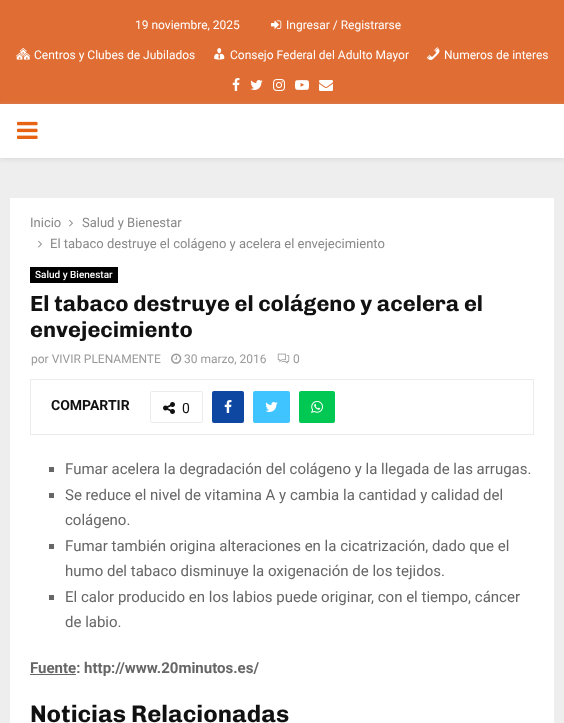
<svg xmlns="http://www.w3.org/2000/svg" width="564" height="723">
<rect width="100%" height="100%" fill="#eee"/>
<rect width="564" height="104" fill="#e06d33"/>
<text x="135" y="29" style="font-family:Roboto;font-size:12px;fill:#fff">19 noviembre, 2025</text>
<image x="271" y="20" width="11" height="9" href="media/1.png"/>
<text x="286" y="29" style="font-family:Roboto;font-size:12px;fill:#fff">Ingresar / Registrarse</text>
<image x="16" y="48" width="15" height="12" href="media/2.png"/>
<text x="34" y="59" style="font-family:Roboto;font-size:12px;fill:#fff">Centros y Clubes de Jubilados</text>
<image x="214" y="48" width="11" height="12" href="media/3.png"/>
<text x="230" y="59" style="font-family:Roboto;font-size:12px;fill:#fff">Consejo Federal del Adulto Mayor</text>
<image x="426" y="47" width="14" height="13" href="media/4.png"/>
<text x="444" y="59" style="font-family:Roboto;font-size:12px;fill:#fff">Numeros de interes</text>
<image x="232" y="78" width="8" height="13" href="media/5.png"/>
<image x="250" y="80" width="13" height="10" href="media/6.png"/>
<image x="273" y="79" width="12" height="12" href="media/7.png"/>
<image x="295" y="80" width="14" height="10" href="media/8.png"/>
<image x="319" y="80" width="14" height="11" href="media/9.png"/>
<rect y="105" width="564" height="54" fill="#bebebe75" filter="blur(2.5px)"/>
<rect y="104" width="564" height="54" fill="#fff"/>
<image x="17" y="121" width="21" height="18" href="media/10.png"/>
<rect x="10" y="198" width="544" height="525" fill="#fff"/>
<text x="30" y="227" style="font-family:Roboto;font-size:13px;fill:#888">Inicio</text>
<image x="69" y="219" width="4" height="8" href="media/11.png"/>
<text x="82" y="227" style="font-family:Roboto;font-size:13px;fill:#888">Salud y Bienestar</text>
<image x="38" y="240" width="4" height="8" href="media/11.png"/>
<text x="50" y="248" style="font-family:Roboto;font-size:13px;fill:#888">El tabaco destruye el colágeno y acelera el envejecimiento</text>
<rect x="30" y="267" width="88" height="16" fill="#000"/>
<text x="35" y="278" style="font-family:Roboto;font-size:10px;font-weight:500;fill:#fff">Salud y Bienestar</text>
<text x="30" y="311" style="font-family:Chivo;font-size:22px;font-weight:bold;fill:#111">El tabaco destruye el colágeno y acelera el</text>
<text x="30" y="337" style="font-family:Chivo;font-size:22px;font-weight:bold;fill:#111">envejecimiento</text>
<text x="31" y="363" style="font-family:Roboto;font-size:12px;fill:#999">por VIVIR PLENAMENTE</text>
<image x="171" y="353" width="11" height="11" href="media/12.png"/>
<text x="184" y="363" style="font-family:Roboto;font-size:12px;fill:#999">30 marzo, 2016</text>
<image x="277" y="353" width="13" height="11" href="media/13.png"/>
<text x="293" y="363" style="font-family:Roboto;font-size:12px;fill:#999">0</text>
<rect x="30.5" y="379.5" width="503" height="55" fill="none" stroke="#ececec"/>
<text x="51" y="410" style="font-family:Roboto;font-size:14px;font-weight:bold;fill:#111">COMPARTIR</text>
<rect x="150.5" y="391.5" width="52" height="31" rx="1.5" fill="none" stroke="#ececec"/>
<image x="163" y="402" width="12" height="12" href="media/14.png"/>
<text x="182" y="413" style="font-family:Roboto;font-size:14px;fill:#111">0</text>
<rect x="212" y="391" width="32" height="32" rx="2" fill="#0d47a1"/>
<image x="224" y="400" width="8" height="13" href="media/15.png"/>
<rect x="253" y="391" width="37" height="32" rx="2" fill="#40c4ff"/>
<image x="265" y="402" width="13" height="10" href="media/16.png"/>
<rect x="299" y="391" width="36" height="32" rx="2" fill="#00c853"/>
<image x="311" y="401" width="12" height="12" href="media/17.png"/>
<rect x="49" y="467" width="5" height="5" fill="#666"/>
<text x="65" y="474" style="font-family:Roboto;font-size:15px;fill:#666">Fumar acelera la degradación del colágeno y la llegada de las arrugas.</text>
<rect x="49" y="493" width="5" height="5" fill="#666"/>
<text x="65" y="500" style="font-family:Roboto;font-size:15px;fill:#666">Se reduce el nivel de vitamina A y cambia la cantidad y calidad del</text>
<text x="65" y="525" style="font-family:Roboto;font-size:15px;fill:#666">colágeno.</text>
<rect x="49" y="544" width="5" height="5" fill="#666"/>
<text x="65" y="551" style="font-family:Roboto;font-size:15px;fill:#666">Fumar también origina alteraciones en la cicatrización, dado que el</text>
<text x="65" y="576" style="font-family:Roboto;font-size:15px;fill:#666">humo del tabaco disminuye la oxigenación de los tejidos.</text>
<rect x="49" y="595" width="5" height="5" fill="#666"/>
<text x="65" y="602" style="font-family:Roboto;font-size:15px;fill:#666">El calor producido en los labios puede originar, con el tiempo, cáncer</text>
<text x="65" y="627" style="font-family:Roboto;font-size:15px;fill:#666">de labio.</text>
<rect x="30" y="674" width="46" height="1" fill="#666"/>
<text x="30" y="673" style="font-family:Roboto;font-size:15px;font-weight:bold;fill:#666">Fuente: http://www.20minutos.es/</text>
<text x="30" y="722" style="font-family:Chivo;font-size:24px;font-weight:bold;fill:#111">Noticias Relacionadas</text>
</svg>
